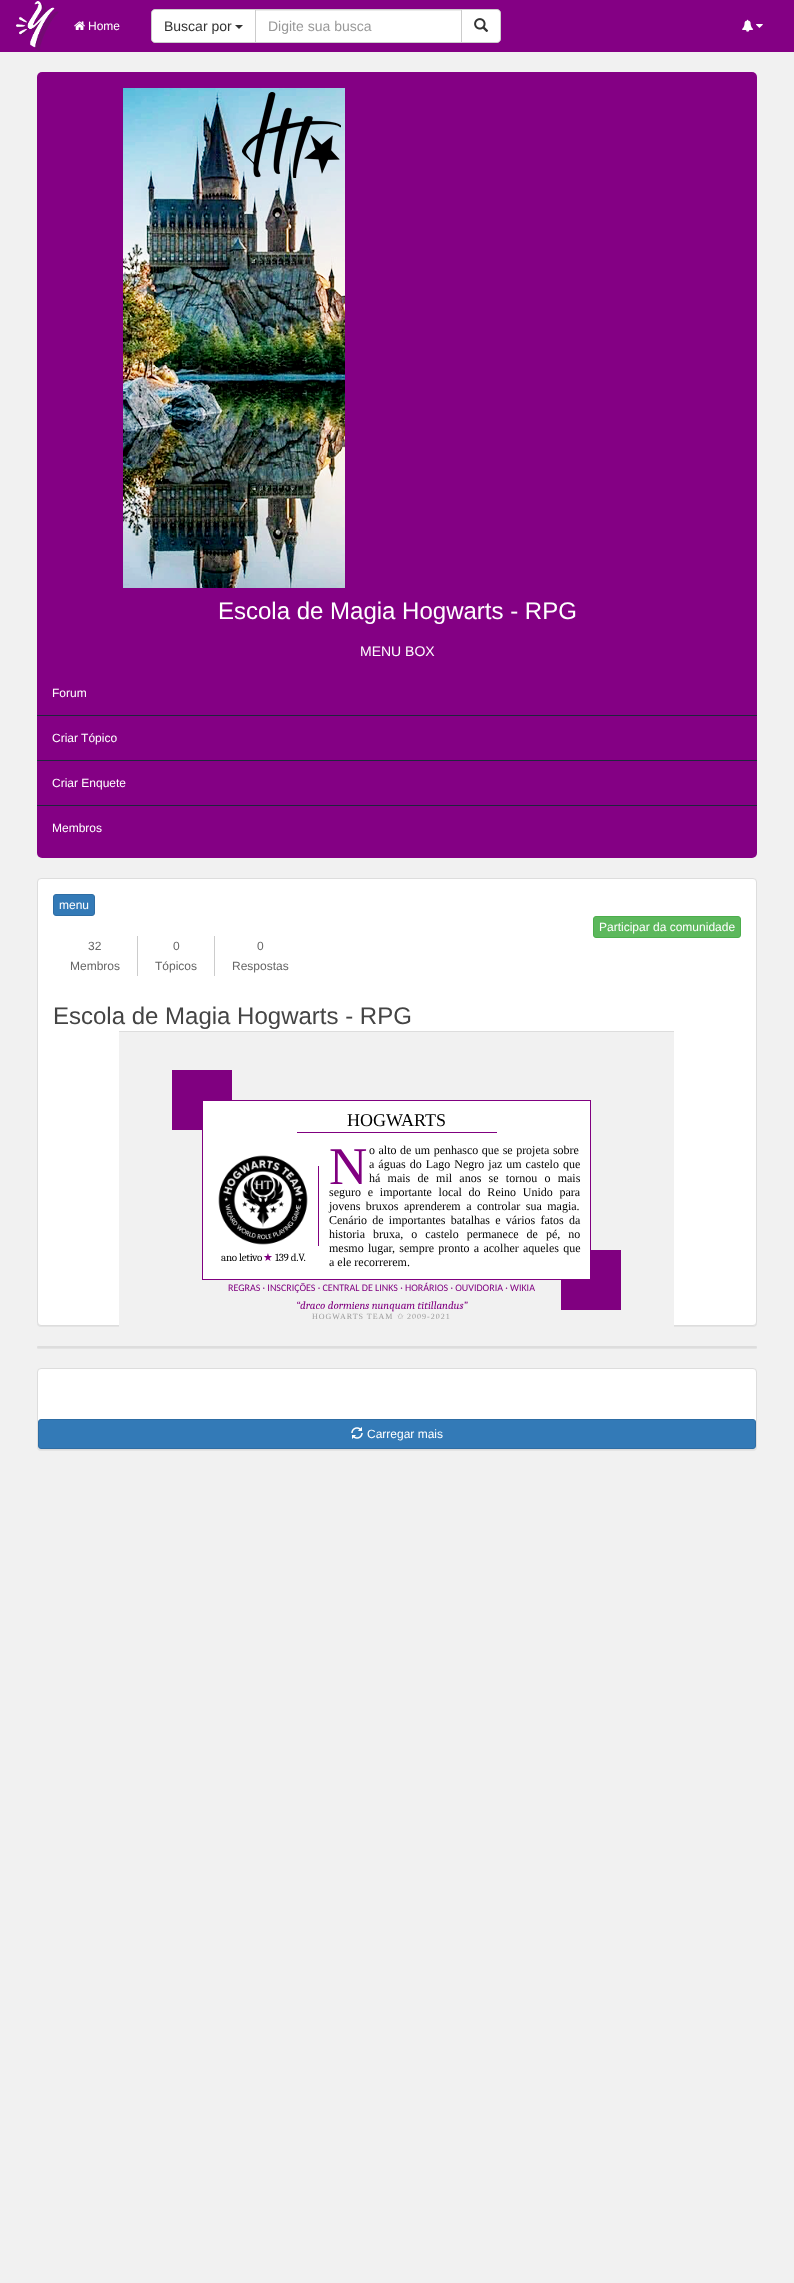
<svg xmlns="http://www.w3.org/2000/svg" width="794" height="2283">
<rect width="100%" height="100%" fill="#f1f1f1"/>
<rect width="794" height="52" fill="#840084"/>
<image x="16" y="1" width="43" height="50" href="media/1.png"/>
<image x="74" y="21" width="11" height="9" href="media/2.png"/>
<text x="88" y="30" style="font-family:Liberation Sans;font-size:12px;fill:#fff">Home</text>
<path d="M155 9.5h100.5v33h-100.5c-2 0-3.5-1.5-3.5-3.5v-26c0-2 1.5-3.5 3.5-3.5z" fill="#fff" stroke="#ccc"/>
<text x="164" y="31" style="font-family:Liberation Sans;font-size:14px;fill:#333">Buscar por</text>
<path d="M235 25h8l-4 4z" fill="#333"/>
<rect x="256" y="11" width="205" height="31" fill="#fff"/>
<rect x="256" y="10" width="205" height="1" fill="#ececec"/>
<path d="M461.5 9.5h35.5c2 0 3.5 1.5 3.5 3.5v26c0 2-1.5 3.5-3.5 3.5h-35.5z" fill="#fff" stroke="#ccc"/>
<rect x="255.5" y="9.5" width="206" height="33" fill="none" stroke="#ccc"/>
<text x="268" y="31" style="font-family:Liberation Sans;font-size:14px;fill:#999">Digite sua busca</text>
<image x="474" y="18" width="15" height="14" href="media/3.png"/>
<image x="742" y="19" width="12" height="13" href="media/4.png"/>
<image x="756" y="24" width="7" height="4" href="media/5.png"/>
<rect x="37" y="72" width="720" height="786" rx="5" fill="#840084"/>
<image x="123" y="88" width="222" height="500" href="media/6.png"/>
<text x="218" y="619" style="font-family:Liberation Sans;font-size:24px;fill:#fff">Escola de Magia Hogwarts - RPG</text>
<text x="360" y="656" style="font-family:Liberation Sans;font-size:14px;fill:#fff">MENU BOX</text>
<rect x="37" y="715" width="720" height="1" fill="#1f253d"/>
<text x="52" y="697" style="font-family:Liberation Sans;font-size:12px;fill:#fff">Forum</text>
<rect x="37" y="760" width="720" height="1" fill="#1f253d"/>
<text x="52" y="742" style="font-family:Liberation Sans;font-size:12px;fill:#fff">Criar Tópico</text>
<rect x="37" y="805" width="720" height="1" fill="#1f253d"/>
<text x="52" y="787" style="font-family:Liberation Sans;font-size:12px;fill:#fff">Criar Enquete</text>
<text x="52" y="832" style="font-family:Liberation Sans;font-size:12px;fill:#fff">Membros</text>
<rect x="37" y="879" width="720" height="448" rx="4" fill="#0000000d" filter="blur(0.5px)"/>
<rect x="37.5" y="878.5" width="719" height="447" rx="3.5" fill="#fff" stroke="#ddd"/>
<rect x="53.5" y="894.5" width="41" height="21" rx="2.5" fill="#337ab7" stroke="#2e6da4"/>
<text x="59" y="909" style="font-family:Liberation Sans;font-size:12px;fill:#fff">menu</text>
<rect x="593.5" y="916.5" width="147" height="21" rx="2.5" fill="#5cb85c" stroke="#4cae4c"/>
<text x="599" y="931" style="font-family:Liberation Sans;font-size:12px;fill:#fff">Participar da comunidade</text>
<rect x="137" y="936" width="1" height="40" fill="#ccc"/>
<text x="88" y="950" style="font-family:Liberation Sans;font-size:12px;fill:#666">32</text>
<text x="70" y="970" style="font-family:Liberation Sans;font-size:12px;fill:#666">Membros</text>
<rect x="214" y="936" width="1" height="40" fill="#ccc"/>
<text x="173" y="950" style="font-family:Liberation Sans;font-size:12px;fill:#666">0</text>
<text x="155" y="970" style="font-family:Liberation Sans;font-size:12px;fill:#666">Tópicos</text>
<text x="257" y="950" style="font-family:Liberation Sans;font-size:12px;fill:#666">0</text>
<text x="232" y="970" style="font-family:Liberation Sans;font-size:12px;fill:#666">Respostas</text>
<text x="53" y="1024" style="font-family:Liberation Sans;font-size:24px;fill:#444">Escola de Magia Hogwarts - RPG</text>
<rect x="119" y="1032" width="555" height="295" fill="#f1f1f1"/>
<rect x="119" y="1031" width="555" height="1" fill="#ddd"/>
<rect x="172" y="1070" width="60" height="60" fill="#800080"/>
<rect x="561" y="1250" width="60" height="60" fill="#800080"/>
<rect x="202.5" y="1100.5" width="388" height="179" fill="#fff" stroke="#800080"/>
<text x="347" y="1126" style="font-family:Liberation Serif;font-size:18px;fill:#000">HOGWARTS</text>
<rect x="297" y="1132" width="200" height="1" fill="#800080"/>
<rect x="318" y="1166" width="1" height="80" fill="#800080"/>
<text x="329" y="1184" style="font-family:Liberation Serif;font-size:53px;fill:#800080">N</text>
<text x="369" y="1154" word-spacing="0.5" style="font-family:Liberation Serif;font-size:12px;fill:#000">o alto de um penhasco que se projeta sobre</text>
<text x="369" y="1168" word-spacing="1" style="font-family:Liberation Serif;font-size:12px;fill:#000">a águas do Lago Negro jaz um castelo que</text>
<text x="369" y="1182" word-spacing="4.25" style="font-family:Liberation Serif;font-size:12px;fill:#000">há mais de mil anos se tornou o mais</text>
<text x="329" y="1196" word-spacing="3.75" style="font-family:Liberation Serif;font-size:12px;fill:#000">seguro e importante local do Reino Unido para</text>
<text x="329" y="1210" word-spacing="2.5" style="font-family:Liberation Serif;font-size:12px;fill:#000">jovens bruxos aprenderem a controlar sua magia.</text>
<text x="329" y="1224" word-spacing="2.25" style="font-family:Liberation Serif;font-size:12px;fill:#000">Cenário de importantes batalhas e vários fatos da</text>
<text x="329" y="1238" word-spacing="5" style="font-family:Liberation Serif;font-size:12px;fill:#000">historia bruxa, o castelo permanece de pé, no</text>
<text x="329" y="1252" word-spacing="1.25" style="font-family:Liberation Serif;font-size:12px;fill:#000">mesmo lugar, sempre pronto a acolher aqueles que</text>
<text x="329" y="1266" style="font-family:Liberation Serif;font-size:12px;fill:#000">a ele recorrerem.</text>
<image x="218" y="1155" width="90" height="90" href="media/7.png"/>
<text x="221" y="1261" style="font-family:Caladea;font-size:11px;letter-spacing:-0.25px;fill:#000">ano letivo</text>
<text x="263" y="1261" style="font-family:DejaVu Sans;font-size:11px;letter-spacing:-0.25px;fill:#800080">★</text>
<text x="275" y="1261" style="font-family:Caladea;font-size:11px;letter-spacing:-0.25px;fill:#000">139 d.V.</text>
<text x="228" y="1291" style="font-family:Carlito;font-size:10px;fill:#800080">REGRAS · INSCRIÇÕES · CENTRAL DE LINKS · HORÁRIOS · OUVIDORIA · WIKIA</text>
<text x="296" y="1309" style="font-family:Caladea;font-size:11px;font-style:italic;fill:#800080">“draco dormiens nunquam titillandus”</text>
<text x="312" y="1319" style="font-family:Liberation Serif;font-size:8px;letter-spacing:1px;fill:#999">HOGWARTS TEAM</text>
<text x="397" y="1319" style="font-family:DejaVu Sans;font-size:8px;letter-spacing:1px;fill:#999">✩</text>
<text x="407" y="1319" style="font-family:Liberation Serif;font-size:8px;letter-spacing:1px;fill:#999">2009-2021</text>
<rect x="37" y="1347" width="720" height="2" rx="1" fill="#0000000d" filter="blur(0.5px)"/>
<rect x="37" y="1346" width="720" height="2" rx="1" fill="#ddd"/>
<rect x="37" y="1369" width="720" height="82" rx="4" fill="#0000000d" filter="blur(0.5px)"/>
<rect x="37.5" y="1368.5" width="719" height="81" rx="3.5" fill="#fff" stroke="#ddd"/>
<rect x="38.5" y="1419.5" width="717" height="29" rx="2.5" fill="#337ab7" stroke="#2e6da4"/>
<image x="351" y="1427" width="12" height="12" href="media/8.png"/>
<text x="367" y="1438" style="font-family:Liberation Sans;font-size:12px;fill:#fff">Carregar mais</text>
</svg>
